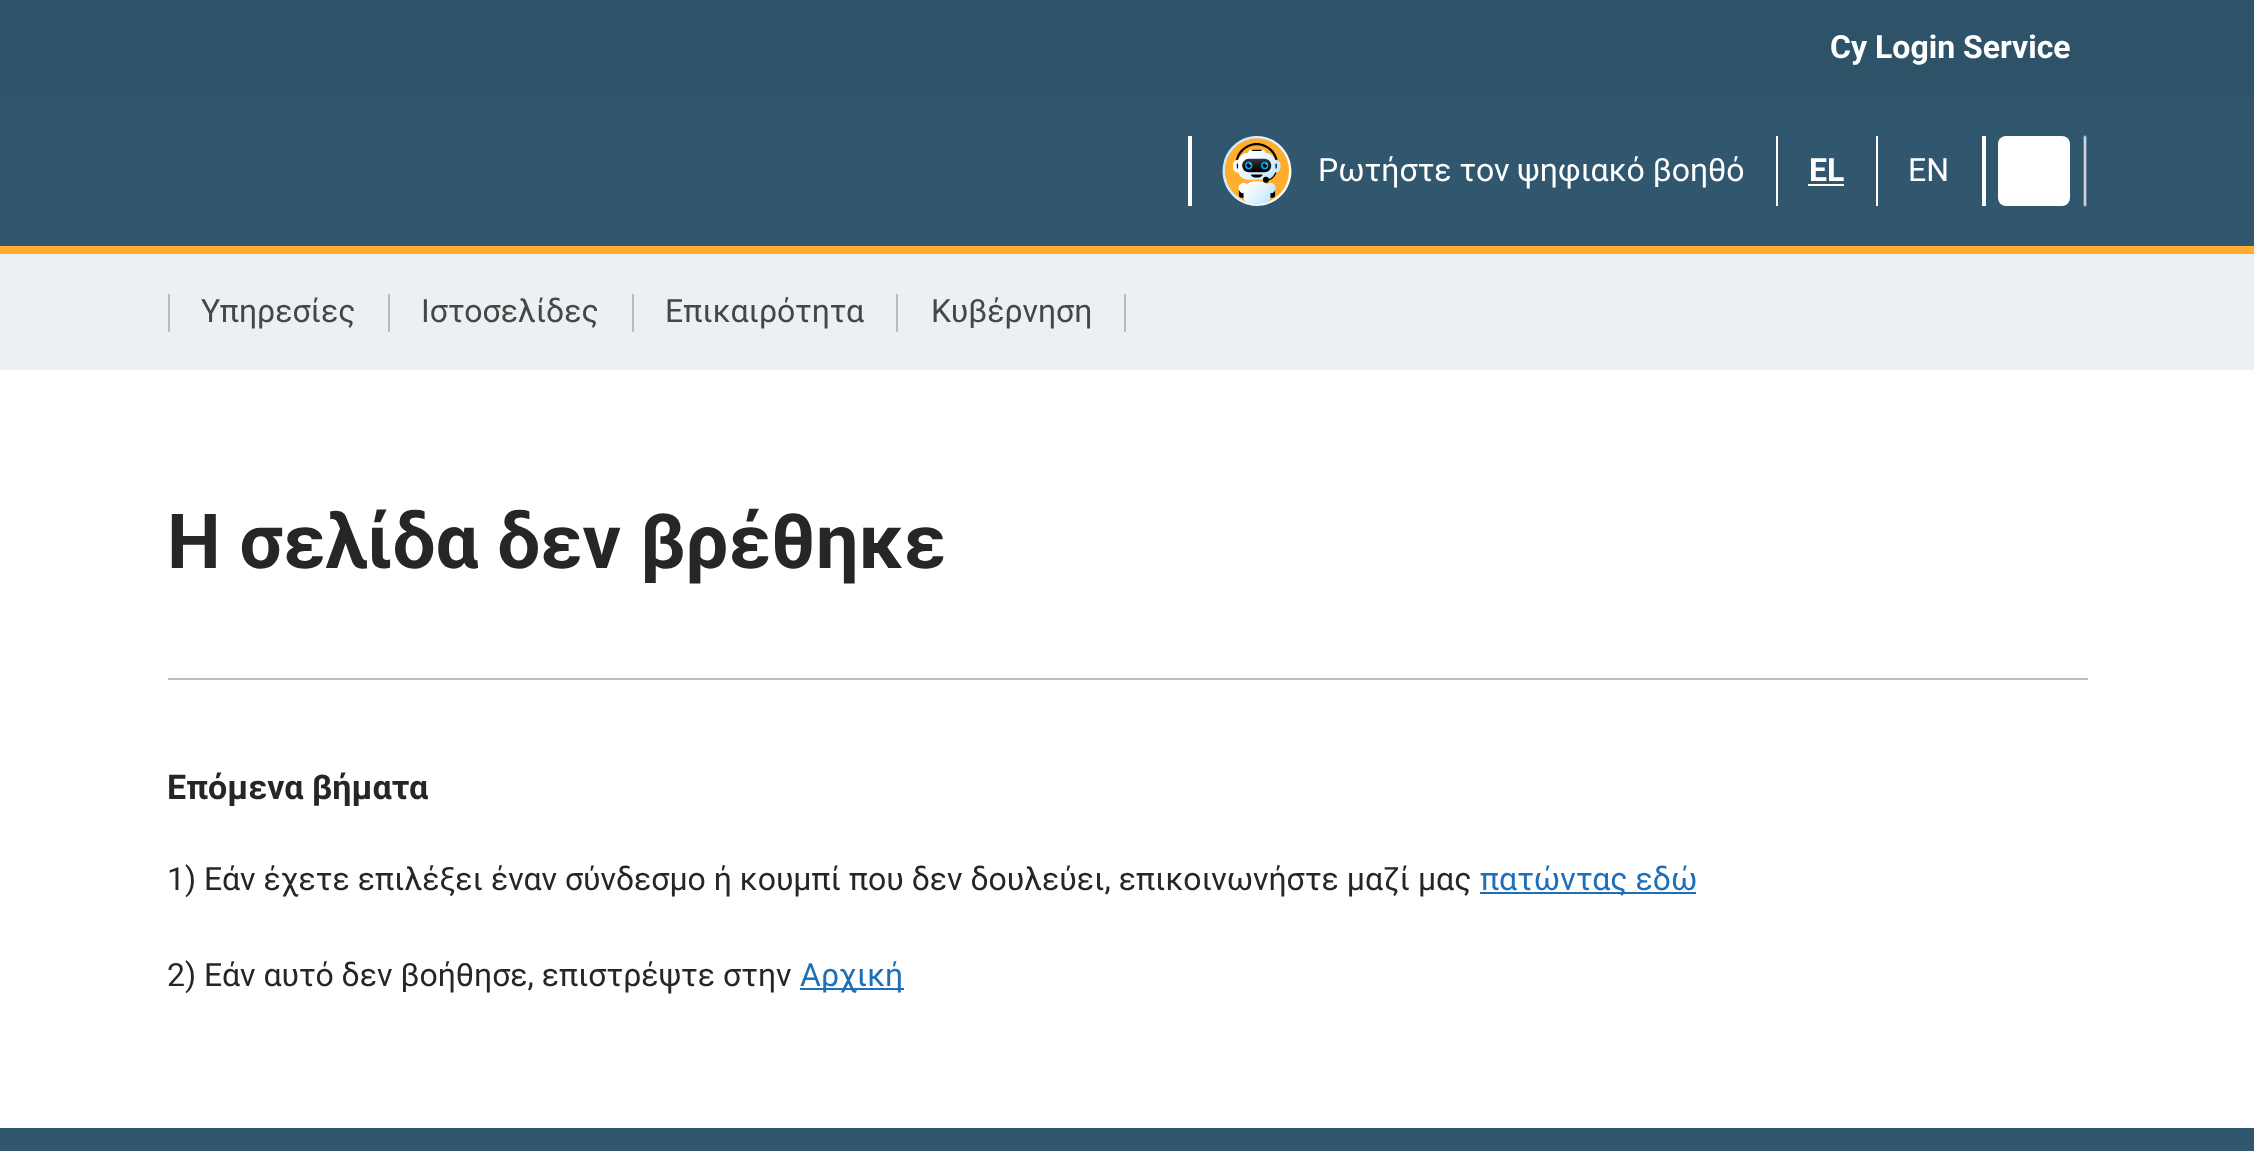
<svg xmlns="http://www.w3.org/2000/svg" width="2254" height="1151">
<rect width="100%" height="100%" fill="#fff"/>
<rect y="96" width="2254" height="150" fill="#31576f"/>
<rect width="2254" height="96" fill="#2e5268"/>
<text x="1830" y="58" style="font-family:Roboto;font-size:32px;font-weight:bold;fill:#fff">Cy Login Service</text>
<rect y="246" width="2254" height="8" fill="#ffad2d"/>
<image x="2083" y="135" width="4" height="72" href="media/1.png"/>
<rect x="1188" y="136" width="4" height="70" fill="#fff"/>
<image x="1222" y="136" width="70" height="70" href="media/2.png"/>
<text x="1318" y="181" style="font-family:Roboto;font-size:32px;fill:#fff">Ρωτήστε τον ψηφιακό βοηθό</text>
<rect x="1776" y="136" width="2" height="70" fill="#fff"/>
<text x="1809" y="181" style="font-family:Roboto;font-size:32px;font-weight:bold;fill:#fff">EL</text>
<rect x="1808" y="184" width="36" height="2" fill="#fff"/>
<rect x="1876" y="136" width="2" height="70" fill="#fff"/>
<text x="1908" y="181" style="font-family:Roboto;font-size:32px;fill:#fff">EN</text>
<rect x="1982" y="136" width="4" height="70" fill="#fff"/>
<rect x="1998" y="136" width="72" height="70" rx="8" fill="#fff"/>
<rect y="254" width="2254" height="116" fill="#ebf1f3"/>
<rect x="168" y="294" width="2" height="38" fill="#bbbcbf"/>
<text x="201" y="322" style="font-family:Roboto;font-size:32px;fill:#474545">Υπηρεσίες</text>
<rect x="388" y="294" width="2" height="38" fill="#bbbcbf"/>
<text x="421" y="322" style="font-family:Roboto;font-size:32px;fill:#474545">Ιστοσελίδες</text>
<rect x="632" y="294" width="2" height="38" fill="#bbbcbf"/>
<text x="665" y="322" style="font-family:Roboto;font-size:32px;fill:#474545">Επικαιρότητα</text>
<rect x="896" y="294" width="2" height="38" fill="#bbbcbf"/>
<text x="931" y="322" style="font-family:Roboto;font-size:32px;fill:#474545">Κυβέρνηση</text>
<rect x="1124" y="294" width="2" height="38" fill="#bbbcbf"/>
<text x="167" y="568" style="font-family:Roboto;font-size:76px;font-weight:bold;fill:#272525">Η σελίδα δεν βρέθηκε</text>
<rect x="168" y="678" width="1920" height="2" fill="#bbbcbf"/>
<text x="167" y="799" style="font-family:Roboto;font-size:34px;font-weight:bold;fill:#272525">Επόμενα βήματα</text>
<text x="167" y="890" style="font-family:Roboto;font-size:32px;fill:#272525">1) Εάν έχετε επιλέξει έναν σύνδεσμο ή κουμπί που δεν δουλεύει, επικοινωνήστε μαζί μας</text>
<rect x="1480" y="892" width="216" height="2" fill="#1d70b8"/>
<text x="1480" y="890" style="font-family:Roboto;font-size:32px;fill:#1d70b8">πατώντας εδώ</text>
<text x="167" y="986" style="font-family:Roboto;font-size:32px;fill:#272525">2) Εάν αυτό δεν βοήθησε, επιστρέψτε στην</text>
<rect x="800" y="988" width="104" height="2" fill="#1d70b8"/>
<text x="800" y="986" style="font-family:Roboto;font-size:32px;fill:#1d70b8">Αρχική</text>
<rect y="1128" width="2254" height="23" fill="#31576f"/>
</svg>
